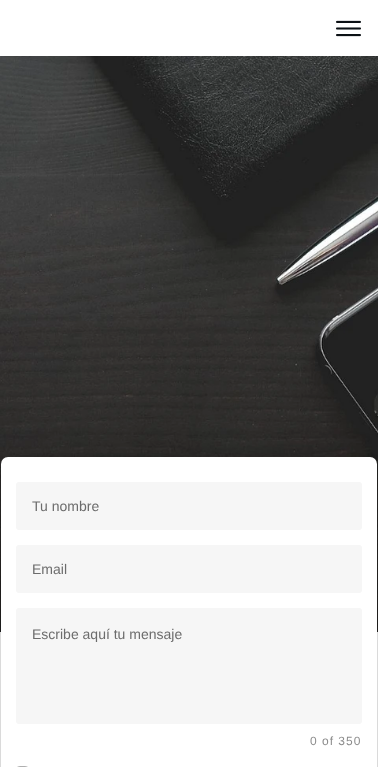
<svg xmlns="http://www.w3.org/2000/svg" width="378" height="767">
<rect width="100%" height="100%" fill="#fff"/>
<image x="336" y="20" width="25" height="17" href="media/1.png"/>
<image x="0" y="56" width="378" height="576" href="media/2.png"/>
<rect x="1" y="465" width="376" height="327" rx="7" fill="#00000040" filter="blur(6px)"/>
<rect x="1" y="459" width="376" height="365" rx="7" fill="#0000000f" filter="blur(16.5px)"/>
<rect x="1" y="457" width="376" height="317" rx="7" fill="#fff"/>
<rect x="16" y="482" width="346" height="48" rx="3" fill="#f6f6f6"/>
<text x="32" y="511" style="font-family:Liberation Sans;font-size:14px;fill:#6c6c6c">Tu nombre</text>
<rect x="16" y="545" width="346" height="48" rx="3" fill="#f6f6f6"/>
<text x="32" y="574" style="font-family:Liberation Sans;font-size:14px;fill:#6c6c6c">Email</text>
<rect x="16" y="608" width="346" height="116" rx="3" fill="#f6f6f6"/>
<text x="32" y="639" style="font-family:Liberation Sans;font-size:14px;fill:#6c6c6c">Escribe aquí tu mensaje</text>
<text x="310" y="745" style="font-family:Liberation Sans;font-size:12px;letter-spacing:1px;fill:#8c8c8c">0 of 350</text>
<rect x="16.5" y="766.5" width="12" height="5" rx="3.5" fill="none" stroke="#afafaf"/>
</svg>
